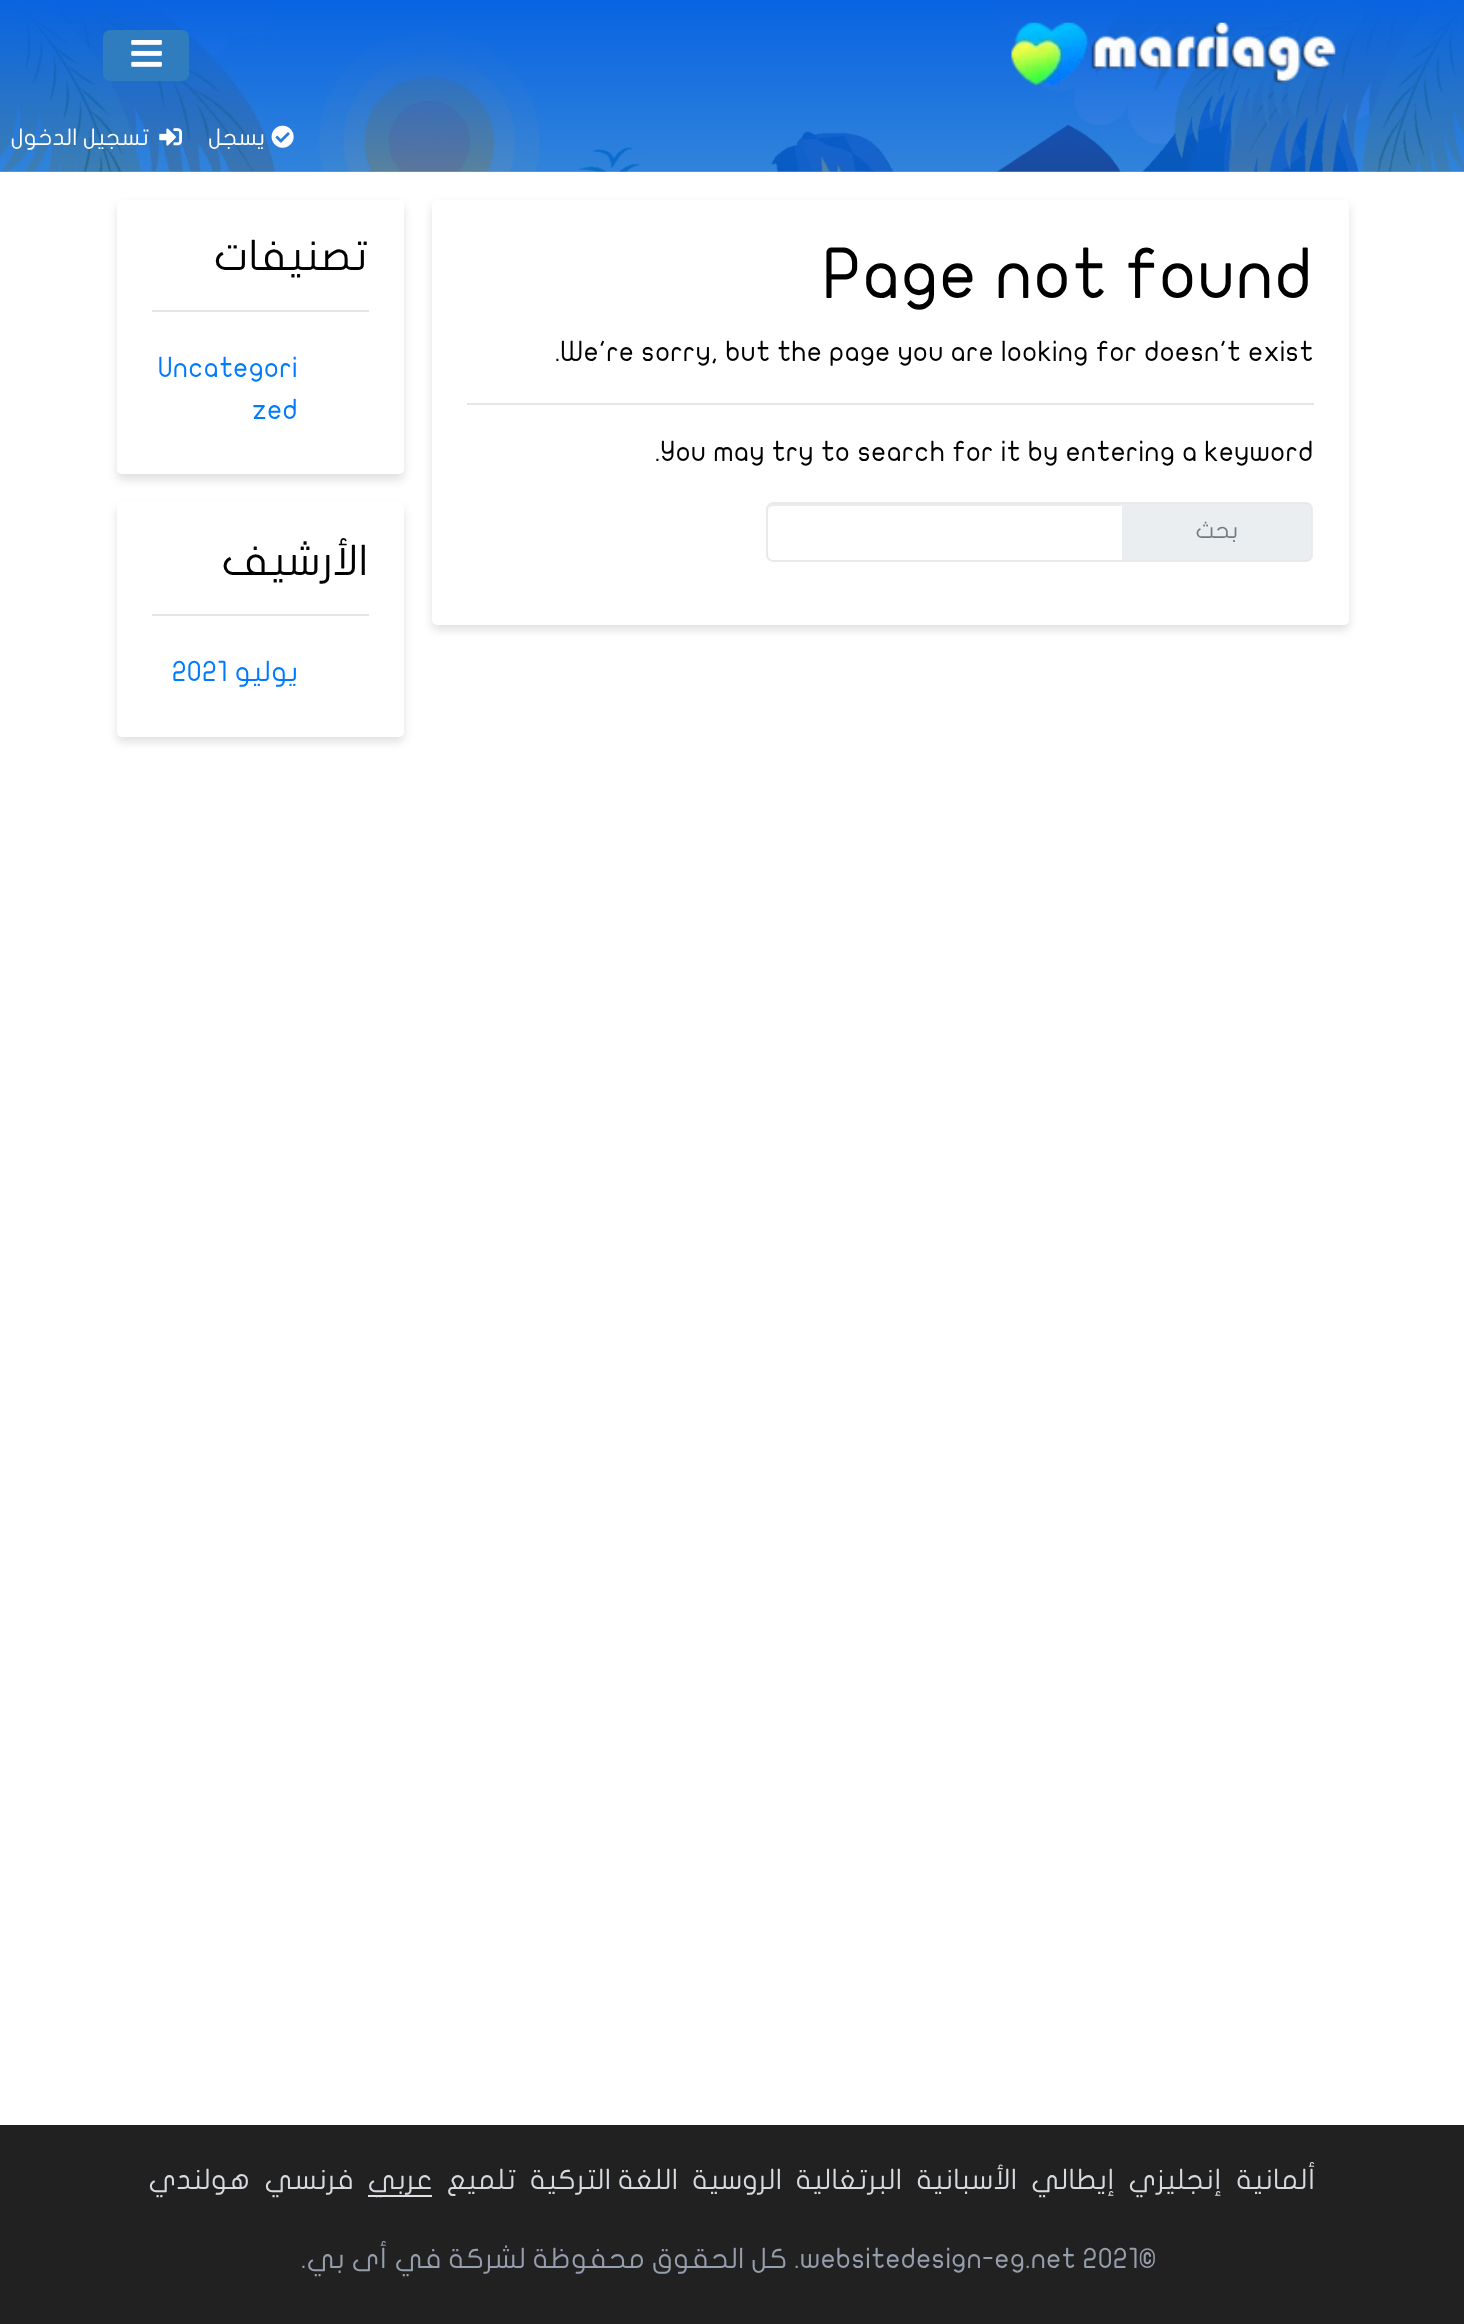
<svg xmlns="http://www.w3.org/2000/svg" width="1464" height="2324">
<rect width="100%" height="100%" fill="#fff"/>
<rect y="171" width="1464" height="1" fill="#83a7e4"/>
<image x="0" y="0" width="1464" height="172" href="media/1.png"/>
<rect x="103" y="30" width="86" height="51" rx="7" fill="#2f7cbf"/>
<image x="131" y="40" width="31" height="27" href="media/2.png"/>
<image x="1011" y="22" width="325" height="64" href="media/3.png"/>
<text x="149" y="145" style="font-family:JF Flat;font-size:22.75px;direction:rtl;fill:#fff">تسجيل الدخول</text>
<image x="159" y="128" width="23" height="18" href="media/4.png"/>
<text x="265" y="145" style="font-family:JF Flat;font-size:22.75px;direction:rtl;fill:#fff">يسجل</text>
<image x="271" y="125" width="23" height="23" href="media/5.png"/>
<rect x="117" y="205" width="287" height="275" rx="5" fill="#0000001f" filter="blur(5px)"/>
<rect x="117" y="200" width="287" height="274" rx="5" fill="#fff"/>
<text x="368" y="270" style="font-family:JF Flat;font-size:42px;direction:rtl;fill:#000">تصنيفات</text>
<rect x="152" y="310" width="217" height="2" fill="#e6e6e6"/>
<text x="158" y="377" style="font-family:JF Flat;font-size:28px;fill:#007bff">Uncategori</text>
<text x="252" y="419" style="font-family:JF Flat;font-size:28px;fill:#007bff">zed</text>
<rect x="117" y="508" width="287" height="234" rx="5" fill="#0000001f" filter="blur(5px)"/>
<rect x="117" y="502" width="287" height="235" rx="5" fill="#fff"/>
<text x="368" y="575" style="font-family:JF Flat;font-size:42px;direction:rtl;fill:#000">الأرشيف</text>
<rect x="152" y="614" width="217" height="2" fill="#e6e6e6"/>
<text x="172" y="681" style="font-family:JF Flat;font-size:28px;fill:#007bff">2021</text>
<text x="298" y="681" style="font-family:JF Flat;font-size:28px;direction:rtl;fill:#007bff">يوليو</text>
<rect x="432" y="205" width="917" height="425" rx="5" fill="#0000001f" filter="blur(5px)"/>
<rect x="432" y="200" width="917" height="425" rx="5" fill="#fff"/>
<text x="823" y="298" style="font-family:JF Flat;font-size:70px;fill:#000">Page not found</text>
<text x="555" y="361" style="font-family:JF Flat;font-size:28px;fill:#000">.We're sorry, but the page you are looking for doesn't exist</text>
<rect x="467" y="403" width="847" height="2" fill="#e6e6e6"/>
<text x="655" y="461" style="font-family:JF Flat;font-size:28px;fill:#000">.You may try to search for it by entering a keyword</text>
<path d="M774 506h348v-2h-349c-4 0-5 4-5 7c0-3 3-5 6-5z" fill="#ececec"/>
<path d="M774 502h348v60h-348c-4 0-8-3-8-7v-46c0-4 4-7 8-7zm0 2h348v56h-348c-3 0-6-2-6-5v-46c0-3 3-5 6-5z" fill="#e9e9e9" fill-rule="evenodd"/>
<path d="M1122 502h184c4 0 7 3 7 7v46c0 4-3 7-7 7h-184z" fill="#ebeef1"/>
<path d="M1122 502h184c3 0 6 3 6 7v46c0 4-3 7-6 7h-184zm0 2h184c2 0 5 2 5 5v46c0 3-3 5-5 5h-184z" fill="#e9e9e9" fill-rule="evenodd"/>
<text x="1238" y="538" style="font-family:JF Flat;font-size:22.75px;direction:rtl;fill:#707a81">بحث</text>
<rect y="2125" width="1464" height="199" fill="#212121"/>
<text x="250" y="2189" style="font-family:JF Flat;font-size:28px;direction:rtl;fill:#d7dadf">هولندي</text>
<text x="354" y="2189" style="font-family:JF Flat;font-size:28px;direction:rtl;fill:#d7dadf">فرنسي</text>
<rect x="368" y="2195" width="64" height="2" fill="#dee2e6"/>
<text x="433" y="2189" style="font-family:JF Flat;font-size:28px;direction:rtl;fill:#d7dadf">عربي</text>
<text x="516" y="2189" style="font-family:JF Flat;font-size:28px;direction:rtl;fill:#d7dadf">تلميع</text>
<text x="678" y="2189" style="font-family:JF Flat;font-size:28px;direction:rtl;fill:#d7dadf">اللغة التركية</text>
<text x="782" y="2189" style="font-family:JF Flat;font-size:28px;direction:rtl;fill:#d7dadf">الروسية</text>
<text x="902" y="2189" style="font-family:JF Flat;font-size:28px;direction:rtl;fill:#d7dadf">البرتغالية</text>
<text x="1017" y="2189" style="font-family:JF Flat;font-size:28px;direction:rtl;fill:#d7dadf">الأسبانية</text>
<text x="1115" y="2189" style="font-family:JF Flat;font-size:28px;direction:rtl;fill:#d7dadf">إيطالي</text>
<text x="1222" y="2189" style="font-family:JF Flat;font-size:28px;direction:rtl;fill:#d7dadf">إنجليزي</text>
<text x="1316" y="2189" style="font-family:JF Flat;font-size:28px;direction:rtl;fill:#d7dadf">ألمانية</text>
<text x="800" y="2268" style="font-family:JF Flat;font-size:28px;direction:rtl;fill:#959eac">. كل الحقوق محفوظة لشركة في أى بي.</text>
<text x="800" y="2268" style="font-family:JF Flat;font-size:28px;fill:#959eac">websitedesign-eg.net 2021©</text>
</svg>
